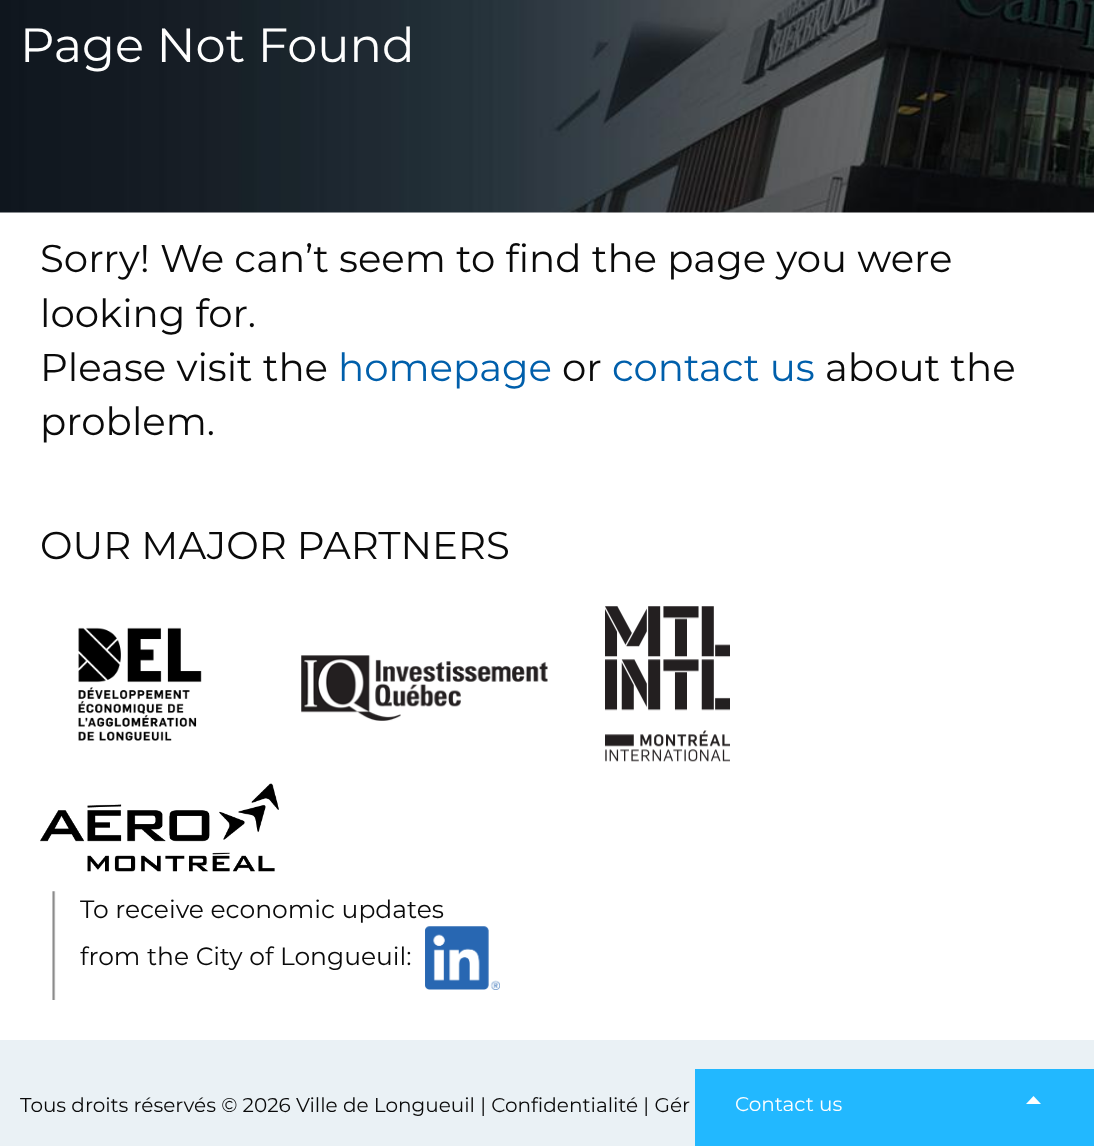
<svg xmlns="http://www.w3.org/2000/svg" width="1094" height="1146">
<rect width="100%" height="100%" fill="#fff"/>
<image x="0" y="0" width="1094" height="213" href="media/1.png"/>
<text x="20" y="62" style="font-family:Montserrat;font-size:48px;font-weight:100;fill:#fefefe">Page Not Found</text>
<text x="40" y="272" style="font-family:Montserrat;font-size:38.75px;font-weight:100;fill:#0a0a0a">Sorry! We can’t seem to find the page you were</text>
<text x="40" y="327" style="font-family:Montserrat;font-size:38.75px;font-weight:100;fill:#0a0a0a">looking for.</text>
<text x="40" y="381" style="font-family:Montserrat;font-size:38.75px;font-weight:100;fill:#0a0a0a">Please visit the</text>
<text x="338" y="381" style="font-family:Montserrat;font-size:38.75px;font-weight:100;fill:#005fab">homepage</text>
<text x="562" y="381" style="font-family:Montserrat;font-size:38.75px;font-weight:100;fill:#0a0a0a">or</text>
<text x="612" y="381" style="font-family:Montserrat;font-size:38.75px;font-weight:100;fill:#005fab">contact us</text>
<text x="825" y="381" style="font-family:Montserrat;font-size:38.75px;font-weight:100;fill:#0a0a0a">about the</text>
<text x="40" y="435" style="font-family:Montserrat;font-size:38.75px;font-weight:100;fill:#0a0a0a">problem.</text>
<text x="40" y="559" style="font-family:Montserrat;font-size:38.75px;font-weight:100;fill:#0a0a0a">OUR MAJOR PARTNERS</text>
<image x="78" y="627" width="124" height="114" href="media/2.png"/>
<image x="301" y="655" width="247" height="66" href="media/3.png"/>
<image x="605" y="606" width="125" height="156" href="media/4.png"/>
<image x="40" y="783" width="239" height="89" href="media/5.png"/>
<image x="52" y="891" width="4" height="109" href="media/6.png"/>
<text x="80" y="918" style="font-family:Montserrat;font-size:25px;font-weight:100;fill:#0a0a0a">To receive economic updates</text>
<text x="80" y="965" style="font-family:Montserrat;font-size:25px;font-weight:100;fill:#0a0a0a">from the City of Longueuil:</text>
<image x="425" y="926" width="75" height="64" href="media/7.png"/>
<rect y="1040" width="1094" height="106" fill="#eaf1f5"/>
<text x="20" y="1112" style="font-family:Montserrat;font-size:20px;font-weight:100;fill:#0a0a0a">Tous droits réservés © 2026 Ville de Longueuil | Confidentialité | Gér</text>
<rect x="695" y="1069" width="399" height="77" fill="#22b8ff"/>
<text x="735" y="1111" style="font-family:Montserrat;font-size:20px;font-weight:100;fill:#fefefe">Contact us</text>
<path d="M1041 1104h-15l7.5-8z" fill="#fefefe"/>
</svg>
